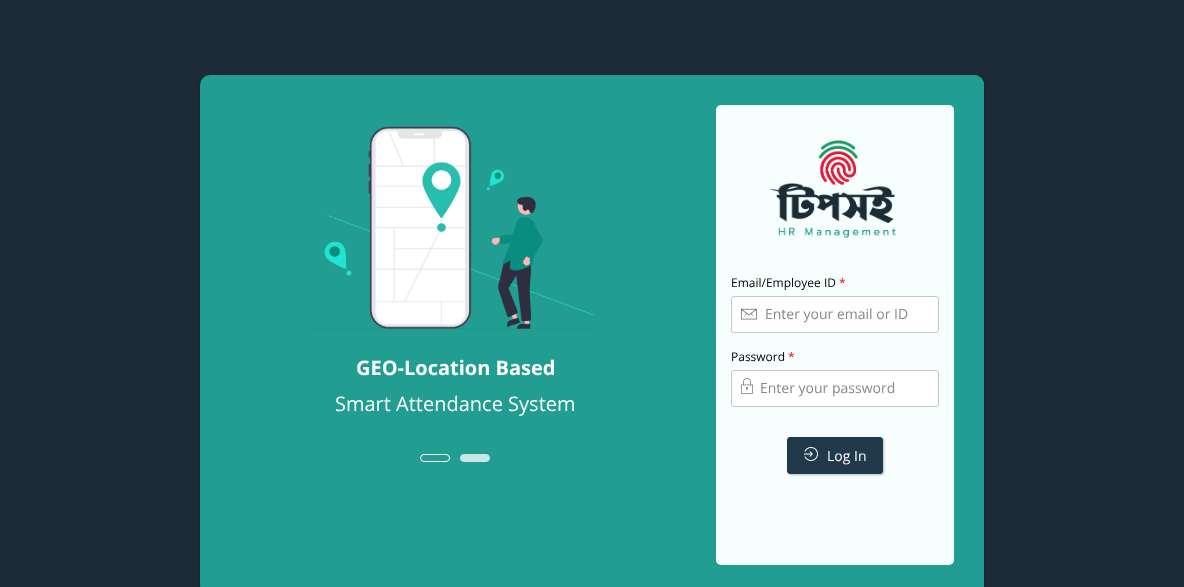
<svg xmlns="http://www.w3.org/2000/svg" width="1184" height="587">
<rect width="100%" height="100%" fill="#1c2b36"/>
<rect x="200" y="80" width="784" height="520" rx="10" fill="#00000040" filter="blur(2.5px)"/>
<rect x="200" y="75" width="784" height="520" rx="10" fill="#219e91"/>
<image x="311" y="126" width="284" height="203" href="media/1.png"/>
<text x="356" y="375" style="font-family:Open Sans;font-size:20px;font-weight:bold;fill:#fff">GEO-Location Based</text>
<text x="335" y="411" style="font-family:Open Sans;font-size:20px;fill:#fff">Smart Attendance System</text>
<rect x="420.5" y="454.5" width="29" height="7" rx="3.5" fill="none" stroke="#fff"/>
<rect x="460.5" y="454.5" width="29" height="7" rx="3.5" fill="#c8e7e4" stroke="#c8e7e4"/>
<path d="M686 75h288c5.5 0 10 4.5 10 10v500c0 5.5-4.5 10-10 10h-288z" fill="#219e91"/>
<rect x="716" y="105" width="238" height="460" rx="5" fill="#f6fffe"/>
<image x="769" y="140" width="128" height="98" href="media/2.png"/>
<text x="731" y="287" style="font-family:Open Sans;font-size:12px;fill:#000">Email/Employee ID</text>
<text x="839" y="287" style="font-family:Open Sans;font-size:12px;fill:#f00">*</text>
<rect x="731.5" y="296.5" width="207" height="36" rx="2.5" fill="#fff" stroke="#c8c8c8"/>
<image x="741" y="308" width="16" height="12" href="media/3.png"/>
<text x="765" y="319" style="font-family:Open Sans;font-size:14px;fill:#888">Enter your email or ID</text>
<text x="731" y="361" style="font-family:Open Sans;font-size:12px;fill:#000">Password</text>
<text x="788" y="361" style="font-family:Open Sans;font-size:12px;fill:#f00">*</text>
<rect x="731.5" y="370.5" width="207" height="36" rx="2.5" fill="#fff" stroke="#c8c8c8"/>
<image x="741" y="378" width="12" height="16" href="media/4.png"/>
<text x="760" y="393" style="font-family:Open Sans;font-size:14px;fill:#888">Enter your password</text>
<rect x="788" y="438" width="96" height="37" rx="3" fill="#00000042" filter="blur(1px)"/>
<rect x="787.5" y="437.5" width="95" height="36" rx="2.5" fill="#20394b" stroke="#20394b"/>
<image x="804" y="447" width="14" height="14" href="media/5.png"/>
<text x="827" y="461" style="font-family:Open Sans;font-size:14px;fill:#fff">Log In</text>
</svg>
